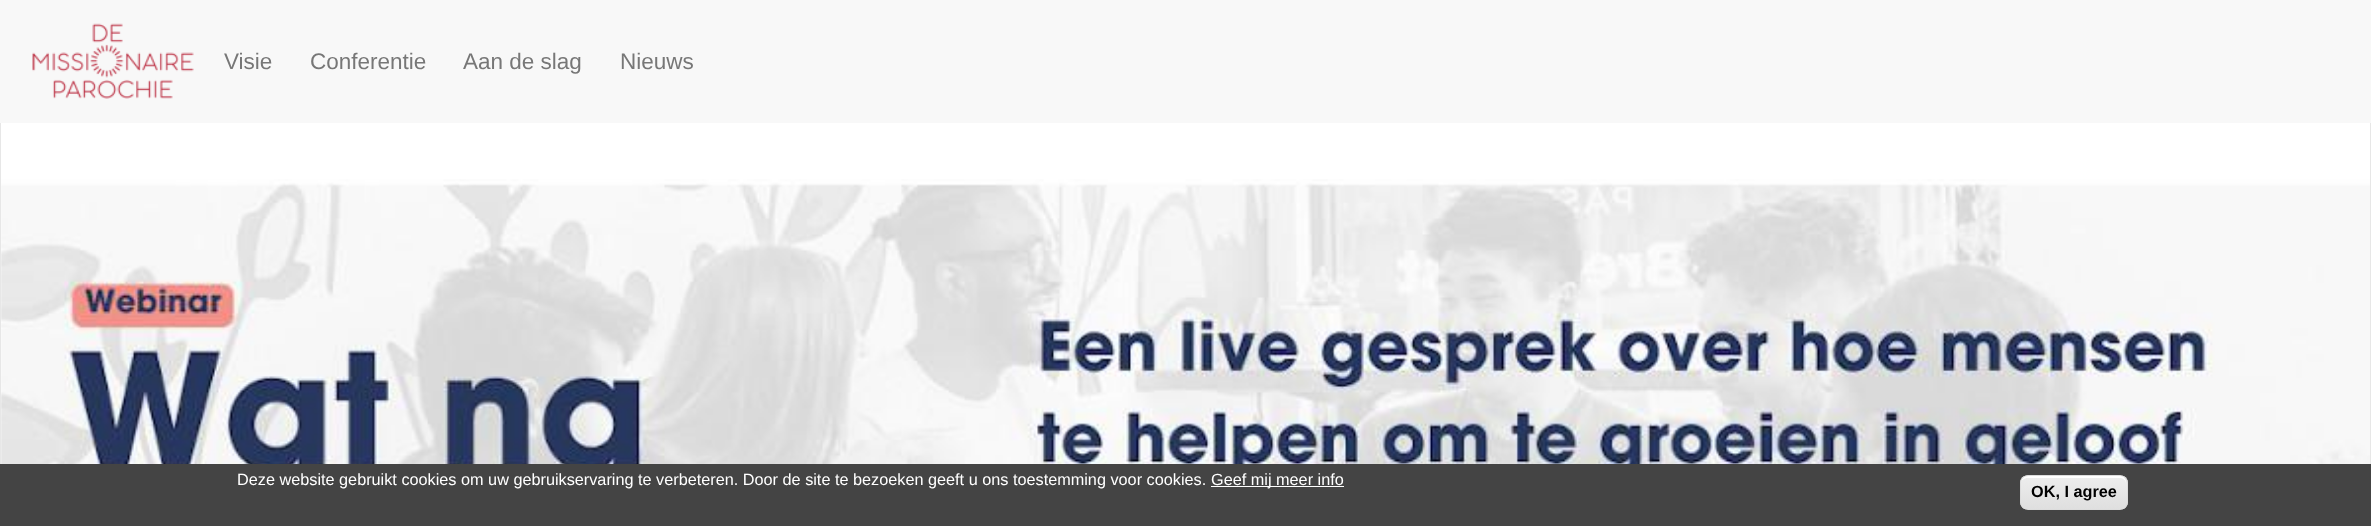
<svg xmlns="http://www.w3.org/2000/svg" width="2371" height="526">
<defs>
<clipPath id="clip1"><rect x="2020" y="475" width="108" height="35" rx="8"/></clipPath>
<linearGradient id="g1" gradientUnits="userSpaceOnUse" x1="2074" y1="476" x2="2074" y2="509"><stop offset="0.05" stop-color="#ededed"/><stop offset="1" stop-color="#dfdfdf"/></linearGradient>
</defs>
<rect width="100%" height="100%" fill="#fff"/>
<rect width="2371" height="123" fill="#f8f8f8"/>
<image x="32" y="23" width="162" height="76" href="media/1.png"/>
<text x="224" y="69" style="font-family:Liberation Sans;font-size:22.5px;fill:#777">Visie</text>
<text x="310" y="69" style="font-family:Liberation Sans;font-size:22.5px;fill:#777">Conferentie</text>
<text x="463" y="69" style="font-family:Liberation Sans;font-size:22.5px;fill:#777">Aan de slag</text>
<text x="620" y="69" style="font-family:Liberation Sans;font-size:22.5px;fill:#777">Nieuws</text>
<rect x="2370" y="123" width="1" height="341" fill="#e7e7e7"/>
<rect y="123" width="1" height="341" fill="#e7e7e7"/>
<image x="1" y="179" width="2369" height="285" href="media/2.png"/>
<rect y="464" width="2371" height="62" fill="#444"/>
<text x="237" y="485" style="font-family:Liberation Sans;font-size:16.25px;fill:#fff">Deze website gebruikt cookies om uw gebruikservaring te verbeteren. Door de site te bezoeken geeft u ons toestemming voor cookies.</text>
<rect x="1211" y="486" width="133" height="1" fill="#fff"/>
<text x="1211" y="485" style="font-family:Liberation Sans;font-size:16.25px;fill:#fff">Geef mij meer info</text>
<g clip-path="url(#clip1)">
<rect x="2020" y="476" width="108" height="33" fill="url(#g1)"/>
</g>
<path d="M2028 478h92c3 0 6 2 6 6c0-12-12-8-22-8h-62c-9 0-21-4-21 8c0-4 3-6 7-6z" fill="#fff"/>
<rect x="2020.5" y="475.5" width="107" height="34" rx="7.5" fill="none" stroke="#dcdcdc"/>
<text x="2031" y="497" style="font-family:Liberation Sans;font-size:16.25px;font-weight:bold;fill:#000">OK, I agree</text>
</svg>
